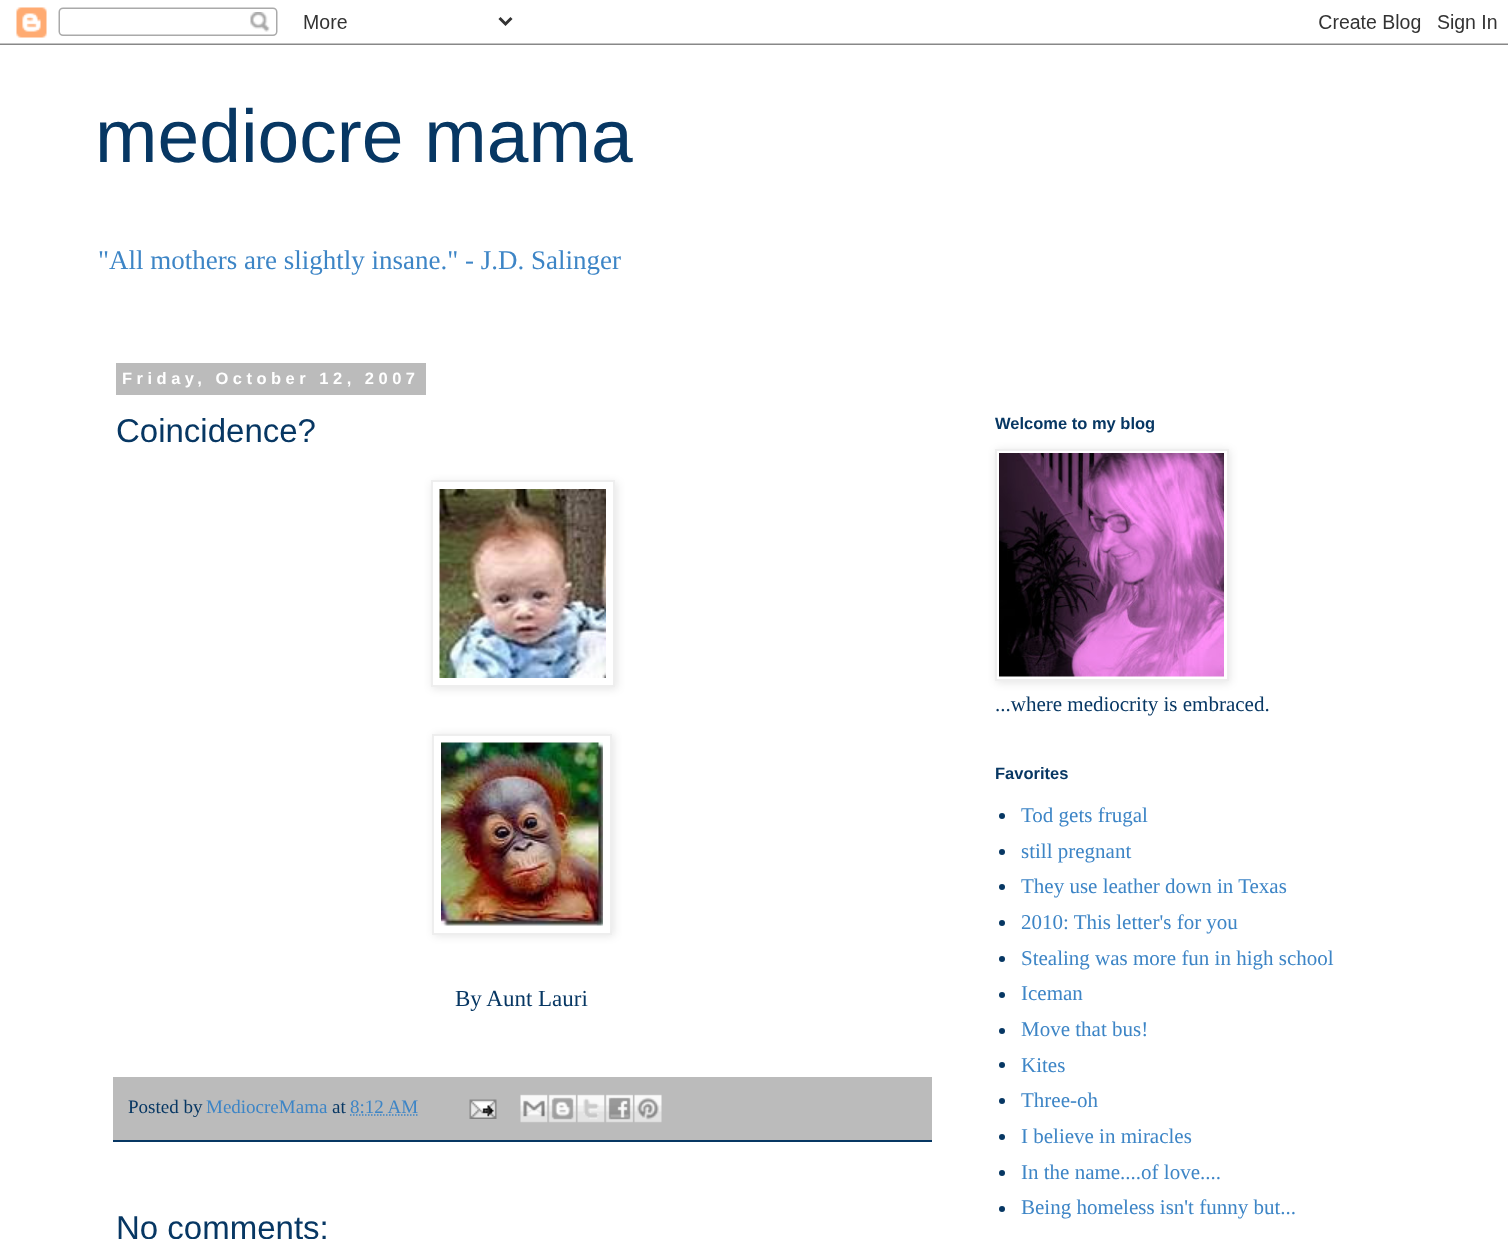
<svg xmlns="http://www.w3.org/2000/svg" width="1508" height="1239">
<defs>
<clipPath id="clip1"><path d="M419 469h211v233h-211zm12 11h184v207h-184z" clip-rule="evenodd"/></clipPath>
</defs>
<rect width="100%" height="100%" fill="#fff"/>
<image x="0" y="7" width="1508" height="38" href="media/1.png"/>
<text x="95" y="162" style="font-family:Liberation Sans;font-size:75px;fill:#073763">mediocre mama</text>
<text x="98" y="269" style="font-family:Liberation Serif;font-size:27px;fill:#3d85c6">"All mothers are slightly insane." - J.D. Salinger</text>
<rect x="116" y="363" width="310" height="32" fill="#bbb"/>
<text x="122" y="384" style="font-family:Liberation Sans;font-size:16.5px;font-weight:bold;letter-spacing:4.5px;fill:#fff">Friday, October 12, 2007</text>
<text x="116" y="442" style="font-family:Liberation Sans;font-size:33px;fill:#073763">Coincidence?</text>
<g clip-path="url(#clip1)">
<rect x="432" y="482" width="185" height="207" fill="#0000001a" filter="blur(4px)"/>
</g>
<rect x="432" y="481" width="182" height="205" fill="none" stroke="#eee" stroke-width="2"/>
<image x="439" y="489" width="167" height="189" href="media/2.png"/>
<rect x="434" y="735" width="180" height="201" fill="#0000001a" filter="blur(4px)"/>
<rect x="433" y="735" width="178" height="199" fill="#fff" stroke="#eee" stroke-width="2"/>
<image x="441" y="742" width="162" height="184" href="media/3.png"/>
<text x="455" y="1006" style="font-family:Liberation Serif;font-size:23px;fill:#073763">By Aunt Lauri</text>
<rect x="113" y="1077" width="819" height="63" fill="#bbb"/>
<rect x="113" y="1140" width="819" height="2" fill="#073763"/>
<text x="128" y="1113" style="font-family:Liberation Serif;font-size:19px;fill:#073763">Posted by</text>
<text x="206" y="1113" style="font-family:Liberation Serif;font-size:19px;fill:#3d85c6">MediocreMama</text>
<text x="332" y="1113" style="font-family:Liberation Serif;font-size:19px;fill:#073763">at</text>
<text x="350" y="1113" style="font-family:Liberation Serif;font-size:19px;fill:#3d85c6">8:12 AM</text>
<path d="M350 1115h68" fill="none" stroke="#3d85c6" stroke-width="1.5" stroke-dasharray="1.5 1.5"/>
<image x="469" y="1099" width="28" height="20" href="media/4.png"/>
<image x="520" y="1094" width="28" height="29" href="media/5.png"/>
<image x="547" y="1094" width="29" height="29" href="media/6.png"/>
<image x="576" y="1094" width="29" height="29" href="media/7.png"/>
<image x="604" y="1094" width="29" height="29" href="media/8.png"/>
<image x="633" y="1094" width="29" height="29" href="media/9.png"/>
<text x="116" y="1239" style="font-family:Liberation Sans;font-size:33px;fill:#073763">No comments:</text>
<text x="995" y="429" style="font-family:Liberation Sans;font-size:16.5px;font-weight:bold;fill:#073763">Welcome to my blog</text>
<rect x="996" y="450" width="234" height="233" fill="#0000001a" filter="blur(4px)"/>
<rect x="996" y="450" width="232" height="230" fill="#fff" stroke="#eee" stroke-width="2"/>
<image x="999" y="453" width="225" height="224" href="media/10.png"/>
<text x="995" y="711" style="font-family:Liberation Serif;font-size:21px;fill:#073763">...where mediocrity is embraced.</text>
<text x="995" y="779" style="font-family:Liberation Sans;font-size:16.5px;font-weight:bold;fill:#073763">Favorites</text>
<circle cx="1002" cy="816" r="3" fill="#073763"/>
<text x="1021" y="822" style="font-family:Liberation Serif;font-size:21px;fill:#3d85c6">Tod gets frugal</text>
<circle cx="1002" cy="852" r="3" fill="#073763"/>
<text x="1021" y="858" style="font-family:Liberation Serif;font-size:21px;fill:#3d85c6">still pregnant</text>
<circle cx="1002" cy="887" r="3" fill="#073763"/>
<text x="1021" y="893" style="font-family:Liberation Serif;font-size:21px;fill:#3d85c6">They use leather down in Texas</text>
<circle cx="1002" cy="923" r="3" fill="#073763"/>
<text x="1021" y="929" style="font-family:Liberation Serif;font-size:21px;fill:#3d85c6">2010: This letter's for you</text>
<circle cx="1002" cy="959" r="3" fill="#073763"/>
<text x="1021" y="965" style="font-family:Liberation Serif;font-size:21px;fill:#3d85c6">Stealing was more fun in high school</text>
<circle cx="1002" cy="995" r="3" fill="#073763"/>
<text x="1021" y="1000" style="font-family:Liberation Serif;font-size:21px;fill:#3d85c6">Iceman</text>
<circle cx="1002" cy="1031" r="3" fill="#073763"/>
<text x="1021" y="1036" style="font-family:Liberation Serif;font-size:21px;fill:#3d85c6">Move that bus!</text>
<circle cx="1002" cy="1065" r="3" fill="#073763"/>
<text x="1021" y="1072" style="font-family:Liberation Serif;font-size:21px;fill:#3d85c6">Kites</text>
<circle cx="1002" cy="1101" r="3" fill="#073763"/>
<text x="1021" y="1107" style="font-family:Liberation Serif;font-size:21px;fill:#3d85c6">Three-oh</text>
<circle cx="1002" cy="1137" r="3" fill="#073763"/>
<text x="1021" y="1143" style="font-family:Liberation Serif;font-size:21px;fill:#3d85c6">I believe in miracles</text>
<circle cx="1002" cy="1173" r="3" fill="#073763"/>
<text x="1021" y="1179" style="font-family:Liberation Serif;font-size:21px;fill:#3d85c6">In the name....of love....</text>
<circle cx="1002" cy="1209" r="3" fill="#073763"/>
<text x="1021" y="1214" style="font-family:Liberation Serif;font-size:21px;fill:#3d85c6">Being homeless isn't funny but...</text>
</svg>
